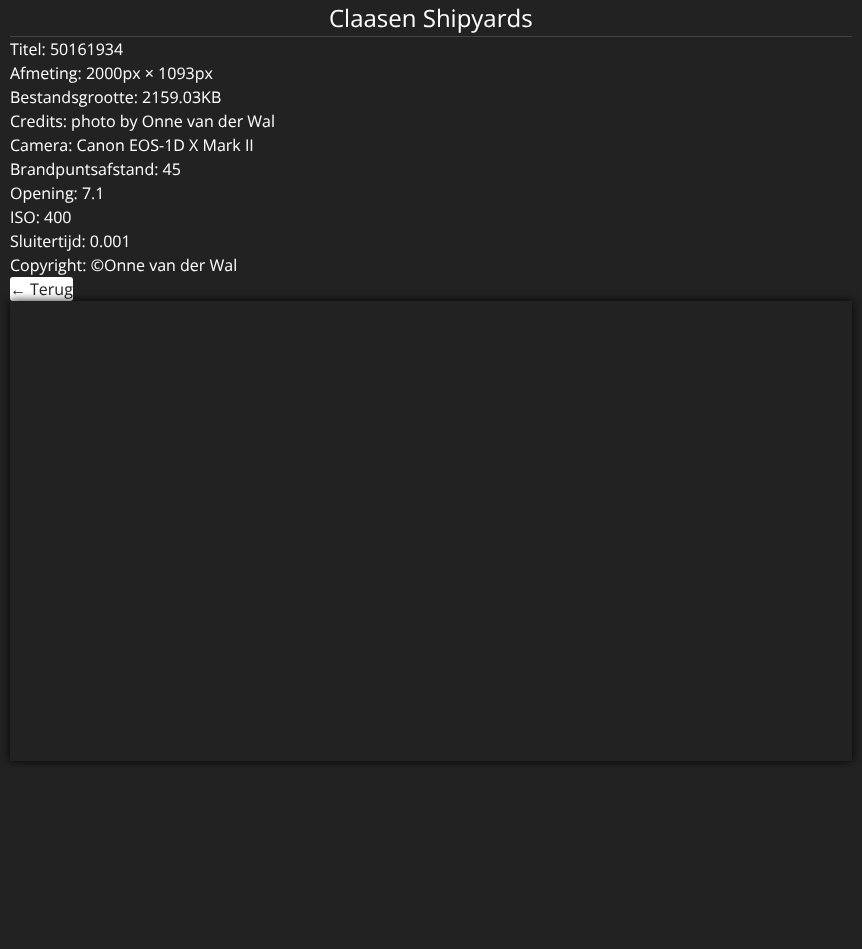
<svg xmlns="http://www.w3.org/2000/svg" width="862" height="949">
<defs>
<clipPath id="clip1"><path d="M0 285h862v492h-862zm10 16h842v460h-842z" clip-rule="evenodd"/></clipPath>
</defs>
<rect width="100%" height="100%" fill="#222"/>
<rect x="10" y="36" width="842" height="1" fill="#444"/>
<text x="329" y="27" style="font-family:Open Sans;font-size:24px;fill:#fff">Claasen Shipyards</text>
<text x="10" y="55" style="font-family:Open Sans;font-size:16px;fill:#fff">Titel: 50161934</text>
<text x="10" y="79" style="font-family:Open Sans;font-size:16px;fill:#fff">Afmeting: 2000px × 1093px</text>
<text x="10" y="103" style="font-family:Open Sans;font-size:16px;fill:#fff">Bestandsgrootte: 2159.03KB</text>
<text x="10" y="127" style="font-family:Open Sans;font-size:16px;fill:#fff">Credits: photo by Onne van der Wal</text>
<text x="10" y="151" style="font-family:Open Sans;font-size:16px;fill:#fff">Camera: Canon EOS-1D X Mark II</text>
<text x="10" y="175" style="font-family:Open Sans;font-size:16px;fill:#fff">Brandpuntsafstand: 45</text>
<text x="10" y="199" style="font-family:Open Sans;font-size:16px;fill:#fff">Opening: 7.1</text>
<text x="10" y="223" style="font-family:Open Sans;font-size:16px;fill:#fff">ISO: 400</text>
<text x="10" y="247" style="font-family:Open Sans;font-size:16px;fill:#fff">Sluitertijd: 0.001</text>
<text x="10" y="271" style="font-family:Open Sans;font-size:16px;fill:#fff">Copyright: ©Onne van der Wal</text>
<rect x="10" y="277" width="63" height="24" rx="3" fill="#fff"/>
<text x="10" y="295" style="font-family:Liberation Sans;font-size:16px;fill:#222">←</text>
<text x="30" y="295" style="font-family:Open Sans;font-size:16px;fill:#222">Terug</text>
<g clip-path="url(#clip1)">
<rect x="10" y="301" width="842" height="460" fill="#000000e6" filter="blur(5px)"/>
</g>
</svg>
